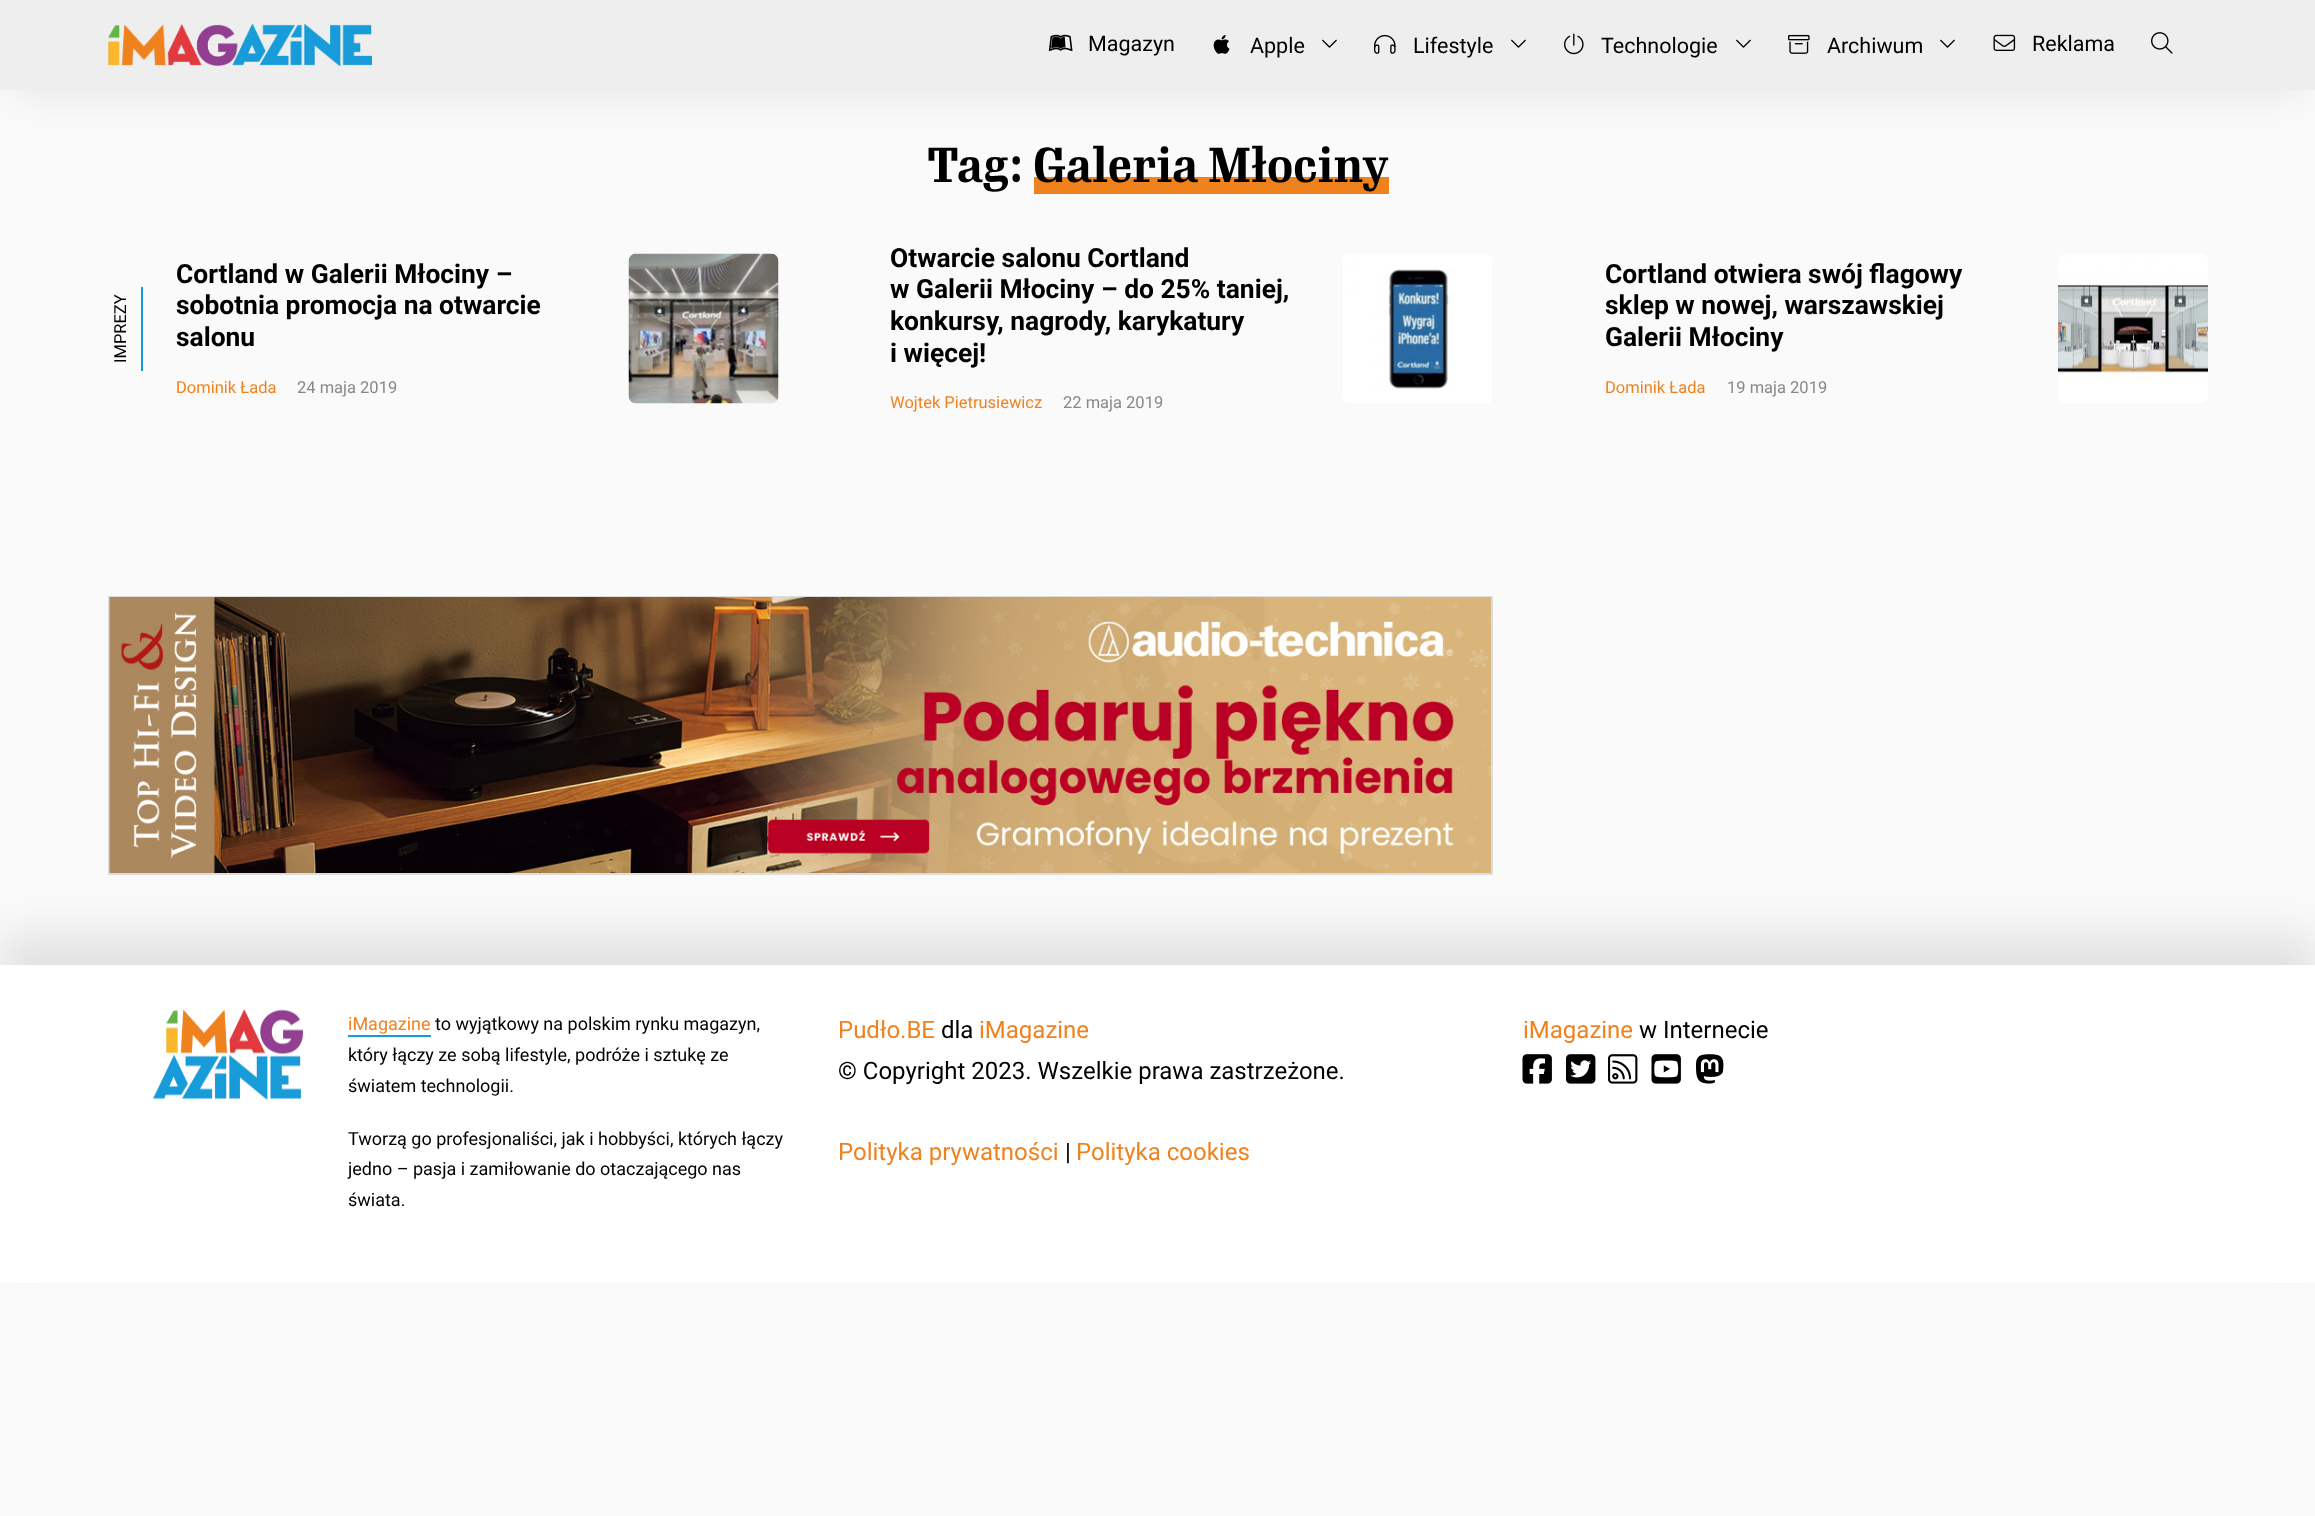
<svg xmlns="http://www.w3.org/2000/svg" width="2315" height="1516">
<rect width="100%" height="100%" fill="#fafafa"/>
<rect x="15" y="30" width="2286" height="60" fill="#0000001a" filter="blur(22.5px)"/>
<rect width="2315" height="90" fill="#eee"/>
<image x="108" y="24" width="264" height="42" href="media/1.png"/>
<image x="1048" y="34" width="25" height="17" href="media/2.png"/>
<text x="1088" y="51" style="font-family:Roboto;font-size:21.5px;fill:#000">Magazyn</text>
<image x="1213" y="35" width="17" height="19" href="media/3.png"/>
<text x="1250" y="53" style="font-family:Roboto;font-size:21.5px;fill:#000">Apple</text>
<image x="1322" y="39" width="15" height="9" href="media/4.png"/>
<image x="1374" y="34" width="22" height="20" href="media/5.png"/>
<text x="1413" y="53" style="font-family:Roboto;font-size:21.5px;fill:#000">Lifestyle</text>
<image x="1511" y="39" width="15" height="9" href="media/4.png"/>
<image x="1564" y="33" width="20" height="22" href="media/6.png"/>
<text x="1601" y="53" style="font-family:Roboto;font-size:21.5px;fill:#000">Technologie</text>
<image x="1736" y="39" width="15" height="9" href="media/4.png"/>
<image x="1788" y="34" width="22" height="20" href="media/7.png"/>
<text x="1827" y="53" style="font-family:Roboto;font-size:21.5px;fill:#000">Archiwum</text>
<image x="1940" y="39" width="15" height="9" href="media/4.png"/>
<image x="1993" y="34" width="23" height="17" href="media/8.png"/>
<text x="2032" y="51" style="font-family:Roboto;font-size:21.5px;fill:#000">Reklama</text>
<image x="2151" y="32" width="22" height="22" href="media/9.png"/>
<text x="927" y="182" style="font-family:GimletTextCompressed;font-size:48px;font-weight:bold;fill:#000">Tag:</text>
<rect x="1034" y="177" width="355" height="17" fill="#f0821e"/>
<text x="1033" y="182" style="font-family:GimletTextCompressed;font-size:48px;font-weight:bold;fill:#000">Galeria Młociny</text>
<rect x="141" y="287" width="2" height="84" fill="#179cd9"/>
<text x="126" y="363" transform="rotate(-90 126 363)" style="font-family:Roboto;font-size:16.5px;fill:#000">IMPREZY</text>
<text x="176" y="283" style="font-family:Roboto;font-size:26.4px;font-weight:bold;fill:#000">Cortland w Galerii Młociny –</text>
<text x="176" y="314" style="font-family:Roboto;font-size:26.4px;font-weight:bold;fill:#000">sobotnia promocja na otwarcie</text>
<text x="176" y="346" style="font-family:Roboto;font-size:26.4px;font-weight:bold;fill:#000">salonu</text>
<text x="176" y="393" style="font-family:Roboto;font-size:16.5px;fill:#f0821e">Dominik Łada</text>
<text x="297" y="393" style="font-family:Roboto;font-size:16.5px;fill:#888">24 maja 2019</text>
<image x="628" y="253" width="151" height="151" href="media/10.png"/>
<text x="890" y="267" style="font-family:Roboto;font-size:26.4px;font-weight:bold;fill:#000">Otwarcie salonu Cortland</text>
<text x="890" y="298" style="font-family:Roboto;font-size:26.4px;font-weight:bold;fill:#000">w Galerii Młociny – do 25% taniej,</text>
<text x="890" y="330" style="font-family:Roboto;font-size:26.4px;font-weight:bold;fill:#000">konkursy, nagrody, karykatury</text>
<text x="890" y="362" style="font-family:Roboto;font-size:26.4px;font-weight:bold;fill:#000">i więcej!</text>
<text x="890" y="408" style="font-family:Roboto;font-size:16.5px;fill:#f0821e">Wojtek Pietrusiewicz</text>
<text x="1063" y="408" style="font-family:Roboto;font-size:16.5px;fill:#888">22 maja 2019</text>
<image x="1343" y="254" width="149" height="149" href="media/11.png"/>
<text x="1605" y="283" style="font-family:Roboto;font-size:26.4px;font-weight:bold;fill:#000">Cortland otwiera swój flagowy</text>
<text x="1605" y="314" style="font-family:Roboto;font-size:26.4px;font-weight:bold;fill:#000">sklep w nowej, warszawskiej</text>
<text x="1605" y="346" style="font-family:Roboto;font-size:26.4px;font-weight:bold;fill:#000">Galerii Młociny</text>
<text x="1605" y="393" style="font-family:Roboto;font-size:16.5px;fill:#f0821e">Dominik Łada</text>
<text x="1727" y="393" style="font-family:Roboto;font-size:16.5px;fill:#888">19 maja 2019</text>
<image x="2058" y="254" width="150" height="149" href="media/12.png"/>
<rect y="935" width="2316" height="318" fill="#0000001a" filter="blur(22.5px)"/>
<rect x="109" y="597" width="1383" height="277" fill="none" stroke="#ddd" stroke-width="2"/>
<image x="109" y="597" width="1382" height="276" href="media/13.png"/>
<rect y="965" width="2315" height="318" fill="#fff"/>
<image x="153" y="1009" width="150" height="91" href="media/14.png"/>
<text x="348" y="1030" style="font-family:Roboto;font-size:18px;fill:#f0821e">iMagazine</text>
<rect x="348" y="1035" width="83" height="2" fill="#179cd9"/>
<text x="435" y="1030" style="font-family:Roboto;font-size:18px;fill:#000">to wyjątkowy na polskim rynku magazyn,</text>
<text x="348" y="1061" style="font-family:Roboto;font-size:18px;fill:#000">który łączy ze sobą lifestyle, podróże i sztukę ze</text>
<text x="348" y="1092" style="font-family:Roboto;font-size:18px;fill:#000">światem technologii.</text>
<text x="348" y="1145" style="font-family:Roboto;font-size:18px;fill:#000">Tworzą go profesjonaliści, jak i hobbyści, których łączy</text>
<text x="348" y="1175" style="font-family:Roboto;font-size:18px;fill:#000">jedno – pasja i zamiłowanie do otaczającego nas</text>
<text x="348" y="1206" style="font-family:Roboto;font-size:18px;fill:#000">świata.</text>
<text x="838" y="1038" style="font-family:Roboto;font-size:24px;fill:#f0821e">Pudło.BE</text>
<text x="941" y="1038" style="font-family:Roboto;font-size:24px;fill:#000">dla</text>
<text x="979" y="1038" style="font-family:Roboto;font-size:24px;fill:#f0821e">iMagazine</text>
<text x="838" y="1079" style="font-family:Roboto;font-size:24px;fill:#000">© Copyright 2023. Wszelkie prawa zastrzeżone.</text>
<text x="838" y="1160" style="font-family:Roboto;font-size:24px;fill:#f0821e">Polityka prywatności</text>
<text x="1065" y="1160" style="font-family:Roboto;font-size:24px;fill:#000">|</text>
<text x="1076" y="1160" style="font-family:Roboto;font-size:24px;fill:#f0821e">Polityka cookies</text>
<text x="1523" y="1038" style="font-family:Roboto;font-size:24px;fill:#f0821e">iMagazine</text>
<text x="1639" y="1038" style="font-family:Roboto;font-size:24px;fill:#000">w Internecie</text>
<image x="1522" y="1054" width="30" height="30" href="media/15.png"/>
<image x="1566" y="1054" width="30" height="30" href="media/16.png"/>
<image x="1608" y="1054" width="30" height="30" href="media/17.png"/>
<image x="1651" y="1054" width="30" height="30" href="media/18.png"/>
<image x="1696" y="1054" width="28" height="30" href="media/19.png"/>
</svg>
